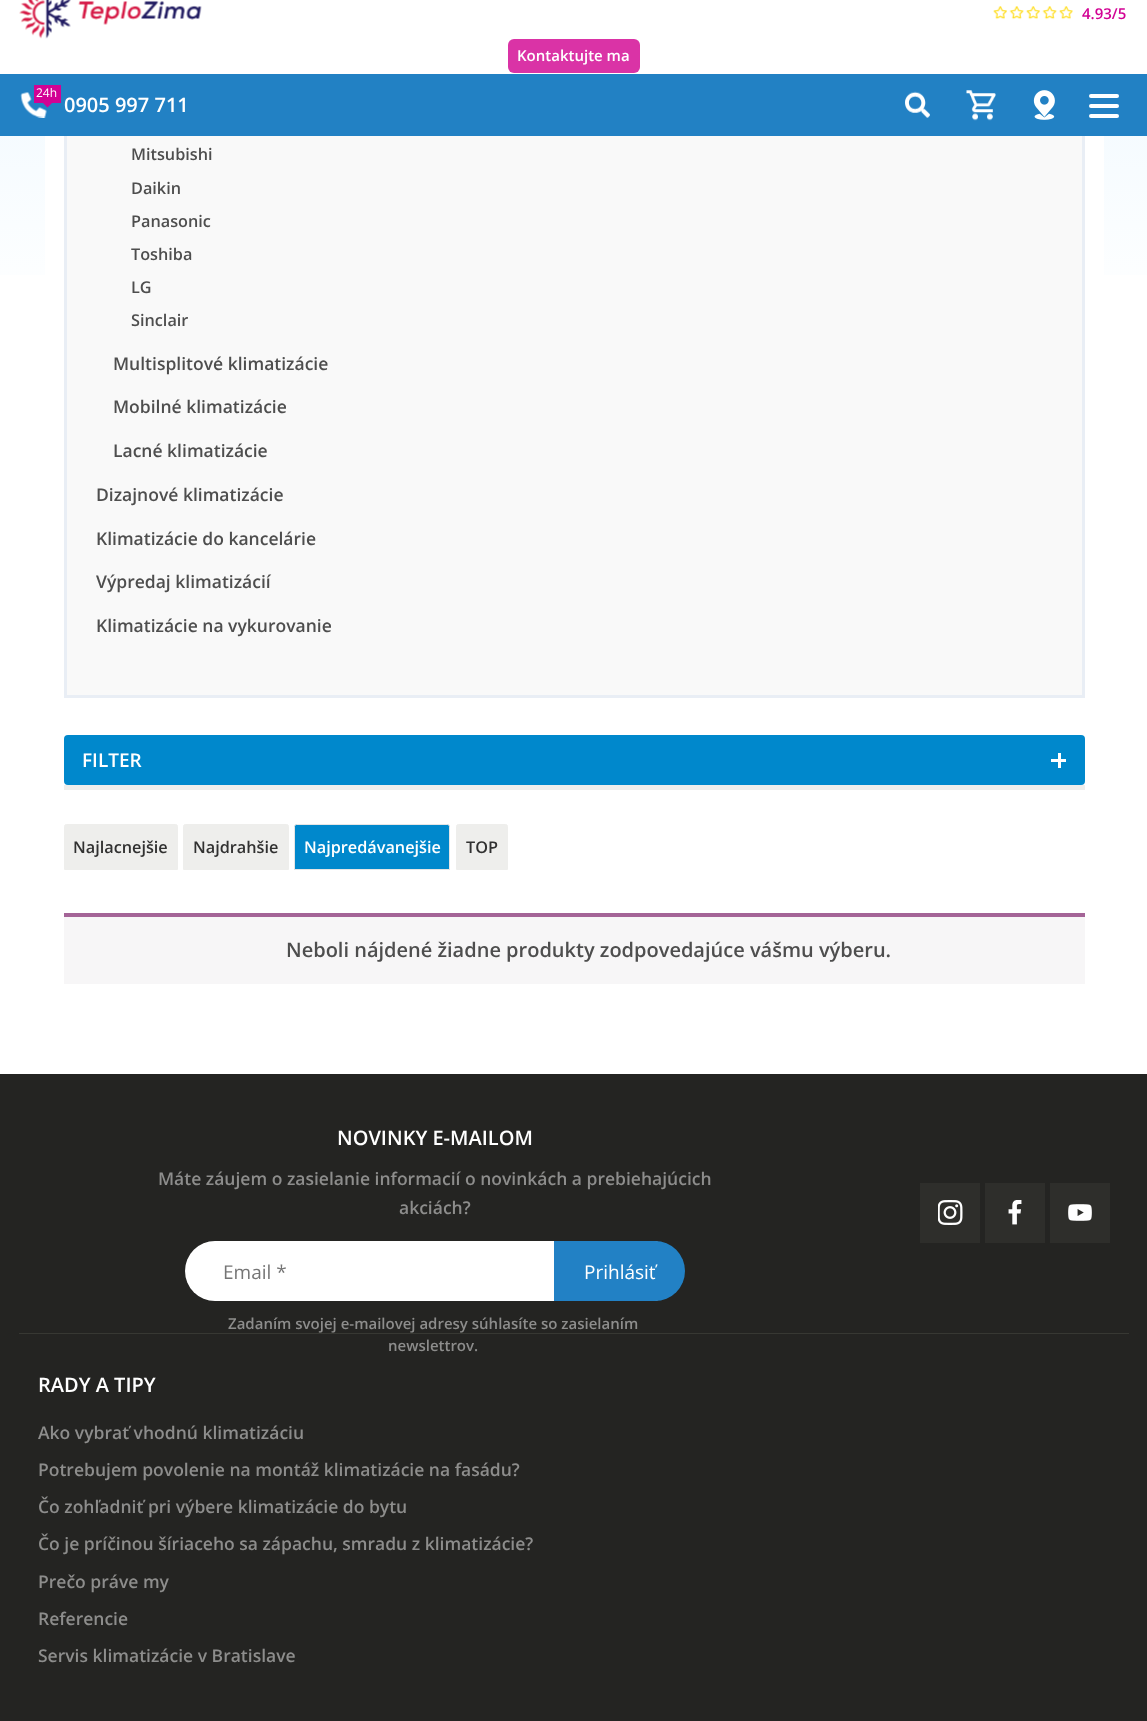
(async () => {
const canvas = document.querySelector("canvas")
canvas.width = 1147
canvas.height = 1721
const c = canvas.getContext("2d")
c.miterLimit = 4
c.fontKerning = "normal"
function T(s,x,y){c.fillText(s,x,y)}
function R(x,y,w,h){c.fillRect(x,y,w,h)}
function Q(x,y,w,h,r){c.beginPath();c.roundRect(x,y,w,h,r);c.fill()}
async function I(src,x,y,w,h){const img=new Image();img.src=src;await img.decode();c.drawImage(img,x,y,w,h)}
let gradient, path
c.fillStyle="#fff"
R(0,0,1147,1721)
gradient = c.createLinearGradient(574,1074,574,-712)
gradient.addColorStop(.42,"#fff")
gradient.addColorStop(.67,"#e8f6ff")
gradient.addColorStop(.78,"#ecf8ff")
gradient.addColorStop(.93,"#edfdff")
c.fillStyle = gradient
R(0,136,1147,139)
c.fillStyle="#fff"
R(45,136,1059,139)
c.fillStyle="#f9f9f9"
R(67,136,1015,559)
c.strokeStyle="#e9eef5"
c.lineWidth=3
c.strokeRect(65.5,-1.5,1018,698)
c.fillStyle="#fff"
R(64,0,1021,74)
await I("1.png",19,0,183,39)
await I("2.png",993,6,80,14)
c.font="600 15px Open Sans"
c.fillStyle="#d20294"
T("4.93/5",1082,19)
c.fillStyle="#da33a6"
Q(508,39,132,34,6)
c.fillStyle="#fff"
T("Kontaktujte ma",517,61)
c.fillStyle="#2281c4"
R(0,74,1147,62)
await I("3.png",20,92,27,26)
c.fillStyle="#d20294"
R(34,85,27,18)
c.font="12px Open Sans"
c.fillStyle="#fff"
T("24h",36,97)
c.fillStyle="#d20294"
path = new Path2D("M42.5 102.5h10l-5 5z")
c.fill(path)
c.font="600 20px Open Sans"
c.fillStyle="#fff"
T("0905 997 711",64,112)
await I("4.png",905,91,25,27)
await I("5.png",966,90,30,31)
await I("6.png",1033,90,22,30)
Q(1089,104,30,4,2)
Q(1089,94,30,4,2)
Q(1089,114,30,4,2)
c.font="600 16.25px Open Sans"
c.fillStyle="#4e4e4e"
T("Mitsubishi",131,160)
T("Daikin",131,194)
T("Panasonic",131,227)
T("Toshiba",131,260)
T("LG",131,293)
T("Sinclair",131,326)
c.font="600 17.5px Open Sans"
T("Multisplitové klimatizácie",113,370)
T("Mobilné klimatizácie",113,413)
T("Lacné klimatizácie",113,457)
T("Dizajnové klimatizácie",96,501)
T("Klimatizácie do kancelárie",96,545)
T("Výpredaj klimatizácií",96,588)
T("Klimatizácie na vykurovanie",96,632)
c.fillStyle="#08c"
Q(64,735,1021,50,4)
c.font="600 19px Open Sans"
c.fillStyle="#fff"
T("FILTER",82,767)
R(1051,759,15,3)
R(1058,753,3,15)
c.fillStyle="#eeeeec"
R(64,785,1021,5)
c.beginPath()
c.roundRect(64.5,824.5,113,45,[2,2,0,0])
c.fill()
c.strokeStyle="#eeeeec"
c.lineWidth=1
c.stroke()
c.font="600 16.25px Open Sans"
c.fillStyle="#313131"
T("Najlacnejšie",73,853)
c.fillStyle="#eeeeec"
c.beginPath()
c.roundRect(183.5,824.5,105,45,[2,2,0,0])
c.fill()
c.stroke()
c.fillStyle="#313131"
T("Najdrahšie",193,853)
c.fillStyle="#08c"
c.beginPath()
c.roundRect(294.5,824.5,155,45,[2,2,0,0])
c.fill()
c.strokeStyle="#e5e5e5"
c.stroke()
c.fillStyle="#fff"
T("Najpredávanejšie",304,853)
c.fillStyle="#eeeeec"
c.beginPath()
c.roundRect(456.5,824.5,51,45,[2,2,0,0])
c.fill()
c.strokeStyle="#eeeeec"
c.stroke()
c.fillStyle="#313131"
T("TOP",466,853)
c.fillStyle="#f7f6f7"
R(64,917,1021,67)
c.fillStyle="#a46497"
R(64,913,1021,4)
c.font="600 20px Open Sans"
c.fillStyle="#4e4e4e"
T("Neboli nájdené žiadne produkty zodpovedajúce vášmu výberu.",286,957)
c.fillStyle="#242422"
R(0,1074,1147,647)
c.fillStyle="#fff"
T("NOVINKY E-MAILOM",337,1145)
c.font="600 17.5px Open Sans"
c.fillStyle="#8d8d8c"
T("Máte záujem o zasielanie informacií o novinkách a prebiehajúcich",158,1185)
T("akciách?",399,1214)
c.fillStyle="#fff"
Q(185,1241,496,60,30)
c.font="19px Open Sans"
c.fillStyle="#757575"
T("Email *",223,1279)
c.fillStyle="#2281c5"
c.beginPath()
c.roundRect(554,1241,131,60,[0,30,30,0])
c.fill()
c.fillStyle="#fff"
T("Prihlásiť",584,1279)
c.font="600 15px Open Sans"
c.fillStyle="#8d8d8c"
T("Zadaním svojej e-mailovej adresy súhlasíte so zasielaním",228,1329)
T("newslettrov.",388,1351)
c.fillStyle="#2e2e2b"
R(920,1183,60,60)
await I("7.png",938,1200,25,25)
R(985,1183,60,60)
await I("8.png",1008,1200,14,25)
R(1050,1183,60,60)
await I("9.png",1068,1204,24,17)
c.fillStyle="#373833"
R(19,1333,1110,1)
c.font="600 20px Open Sans"
c.fillStyle="#fff"
T("RADY A TIPY",38,1392)
c.font="600 17.5px Open Sans"
c.fillStyle="#8d8d8c"
T("Ako vybrať vhodnú klimatizáciu",38,1439)
T("Potrebujem povolenie na montáž klimatizácie na fasádu?",38,1476)
T("Čo zohľadniť pri výbere klimatizácie do bytu",38,1513)
T("Čo je príčinou šíriaceho sa zápachu, smradu z klimatizácie?",38,1550)
T("Prečo práve my",38,1588)
T("Referencie",38,1625)
T("Servis klimatizácie v Bratislave",38,1662)
})()
